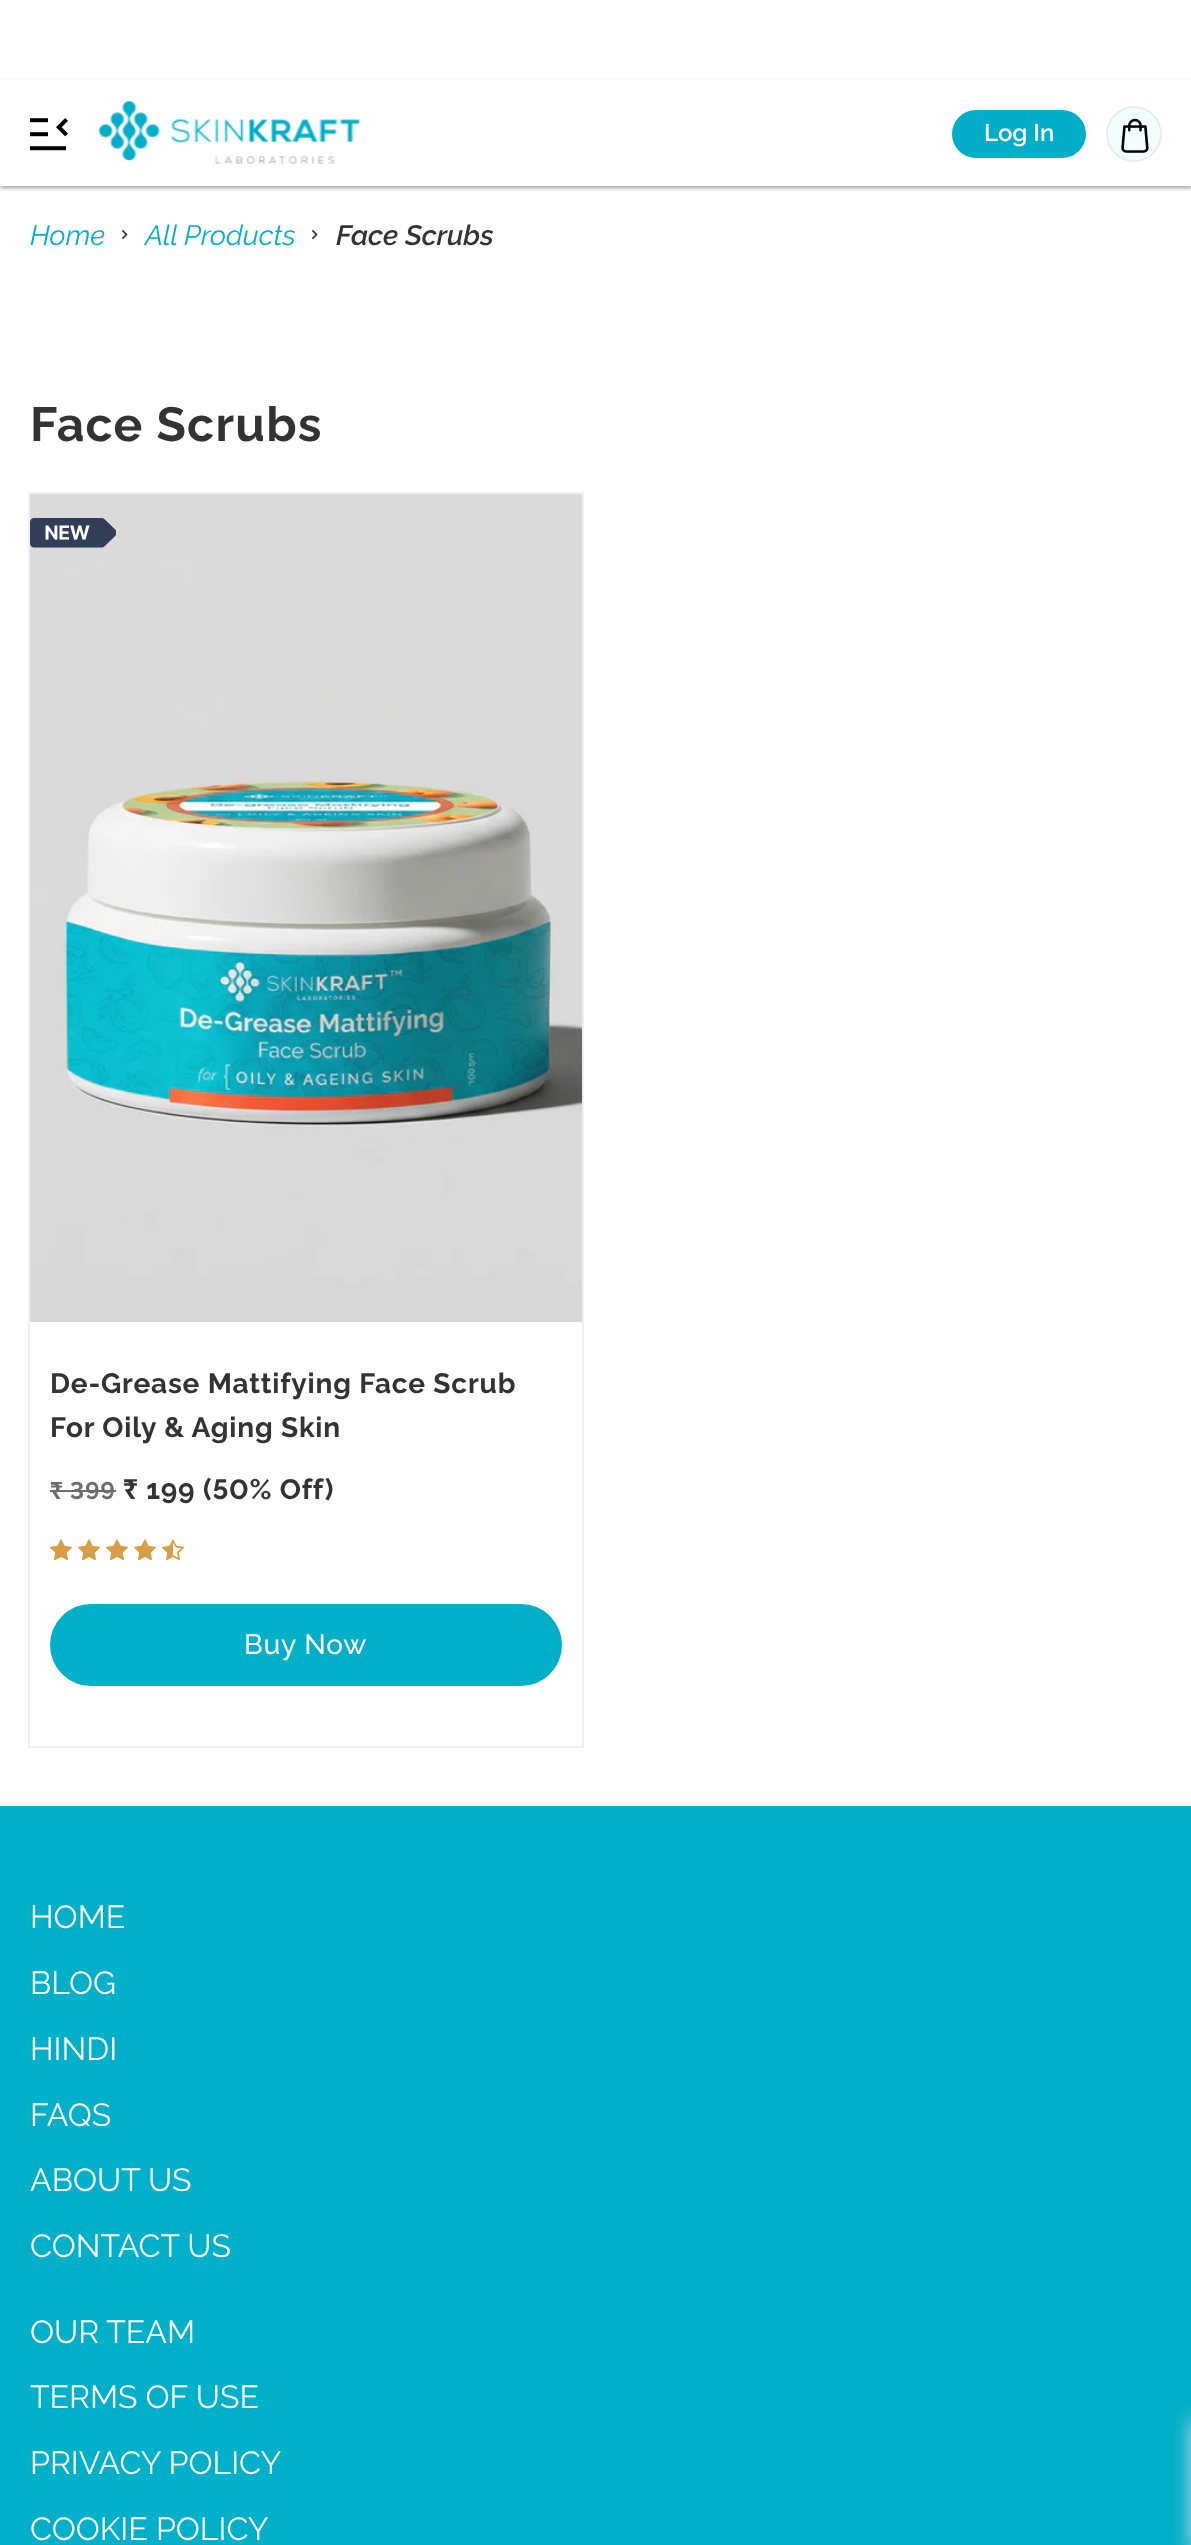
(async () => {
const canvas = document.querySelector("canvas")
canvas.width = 1191
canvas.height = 2545
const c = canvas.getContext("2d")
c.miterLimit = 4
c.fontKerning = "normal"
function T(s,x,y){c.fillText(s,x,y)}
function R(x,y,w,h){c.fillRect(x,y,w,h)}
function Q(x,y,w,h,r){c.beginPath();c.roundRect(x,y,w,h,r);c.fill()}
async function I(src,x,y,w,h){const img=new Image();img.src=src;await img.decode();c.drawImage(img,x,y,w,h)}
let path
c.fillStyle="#fff"
R(0,0,1191,2545)
c.save()
c.beginPath()
c.rect(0,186,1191,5)
c.clip()
c.fillStyle="#00000033"
c.filter="blur(2px)"
c.beginPath()
c.rect(0,2,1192,186)
c.fill()
c.filter="none"
c.restore()
c.save()
path = new Path2D("M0 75h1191v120h-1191zm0 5h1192v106h-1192z")
c.clip(path,"evenodd")
c.fillStyle="#00000033"
c.filter="blur(2px)"
c.beginPath()
c.rect(0,82,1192,106)
c.fill()
c.filter="none"
c.restore()
await I("1.png",30,118,38,33)
await I("2.png",99,101,261,63)
c.fillStyle="#02aec7"
Q(952,110,134,48,24)
c.font="600 24px Raleway"
c.fillStyle="#fff"
T("Log In",984,141)
c.fillStyle="#f2fdff"
c.beginPath()
c.arc(1134,134,27,0,7)
c.fill()
c.strokeStyle="#ebebeb"
c.lineWidth=2
c.stroke()
await I("3.png",1121,118,28,35)
c.font="italic 28px Raleway"
c.fillStyle="#00afc8"
T("Home",30,245)
await I("4.png",122,230,6,10)
T("All Products",145,245)
await I("4.png",312,230,6,10)
c.font="italic 600 28px Raleway"
c.fillStyle="#333"
T("Face Scrubs",336,245)
c.letterSpacing="1.25px"
c.font="bold 48px Raleway"
T("Face Scrubs",30,441)
c.fillStyle="#6c6c6c"
R(50,1490,66,2)
await I("7.png",50,1539,22,22)
await I("7.png",78,1539,22,22)
await I("7.png",106,1539,22,22)
await I("7.png",134,1539,22,22)
await I("8.png",162,1539,22,22)
c.fillStyle="#00afc8"
Q(50,1604,512,82,41)
c.strokeStyle="#f0f0f0"
c.strokeRect(29,493,554,1254)
await I("5.png",30,494,552,828)
await I("6.png",30,518,86,30)
c.letterSpacing="0.8px"
c.font="bold 28px Raleway"
c.fillStyle="#333"
T("De-Grease Mattifying Face Scrub",50,1393)
T("For Oily & Aging Skin",50,1437)
c.letterSpacing="0.75px"
c.font="bold 24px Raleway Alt"
c.fillStyle="#6c6c6c"
T("₹ 399",50,1499)
c.font="bold 28px Raleway"
c.fillStyle="#333"
T("₹ 199",123,1499)
c.font="bold 28px Raleway Alt"
T("(50% Off)",203,1499)
c.font="500 28px Raleway"
c.fillStyle="#fff"
T("Buy Now",244,1654)
c.fillStyle="#00afc8"
R(0,1806,1191,739)
c.fillStyle="#ddd"
c.filter="blur(10px)"
c.beginPath()
c.rect(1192,2420,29,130)
c.fill()
c.filter="none"
c.letterSpacing="0px"
c.font="32px Raleway"
c.fillStyle="#fff"
T("HOME",30,1928)
T("BLOG",30,1994)
T("HINDI",30,2060)
T("FAQS",30,2126)
T("ABOUT US",30,2191)
T("CONTACT US",30,2257)
T("OUR TEAM",30,2343)
T("TERMS OF USE",30,2408)
T("PRIVACY POLICY",30,2474)
T("COOKIE POLICY",30,2540)
})()
